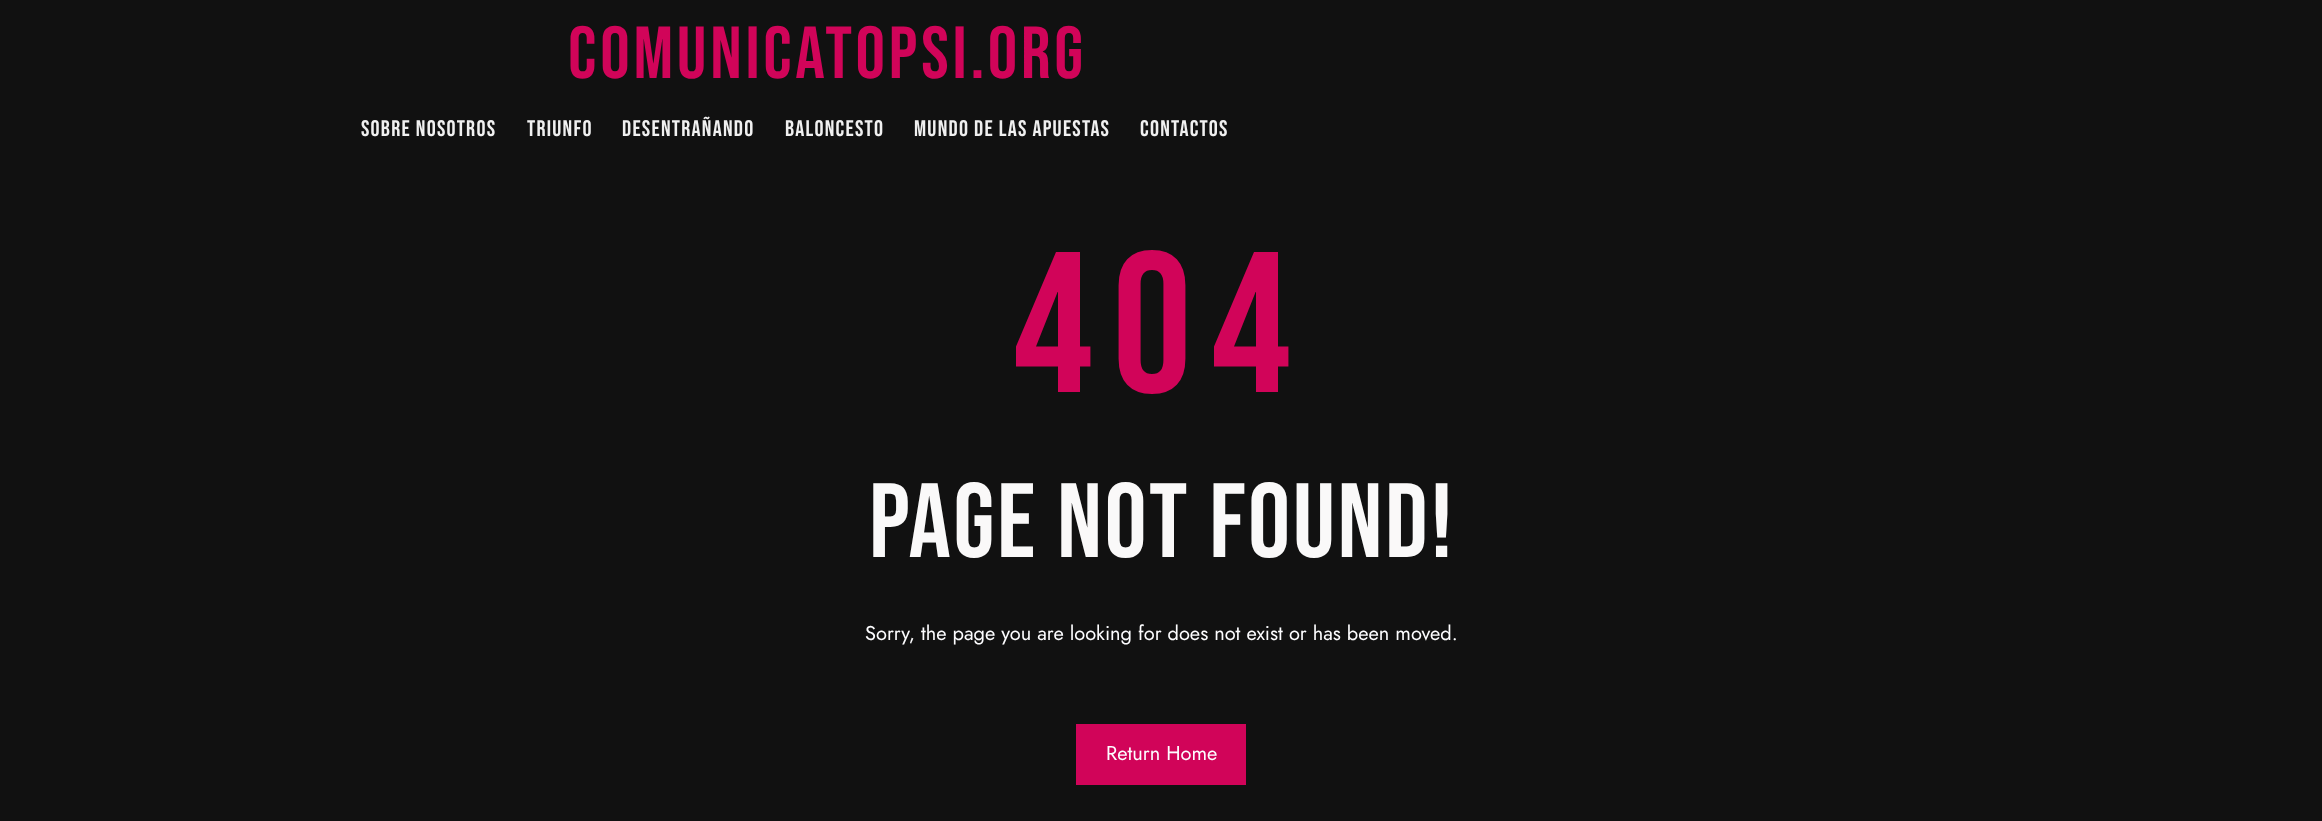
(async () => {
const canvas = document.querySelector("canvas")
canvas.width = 2322
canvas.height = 821
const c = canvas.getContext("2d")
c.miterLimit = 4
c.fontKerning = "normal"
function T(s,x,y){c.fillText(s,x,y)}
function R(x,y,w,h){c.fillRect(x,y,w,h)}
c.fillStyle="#111"
R(0,0,2322,821)
c.letterSpacing="3.75px"
c.font="73.75px Bebas Neue"
c.fillStyle="#d10459"
T("COMUNICATOPSI.ORG",568,78)
c.letterSpacing="1.25px"
c.font="22.5px Bebas Neue"
c.fillStyle="#f0f0f0"
T("SOBRE NOSOTROS",361,136)
T("Triunfo",527,136)
T("Desentrañando",622,136)
T("Baloncesto",785,136)
T("Mundo de las Apuestas",914,136)
T("Contactos",1140,136)
c.letterSpacing="19px"
c.font="200px Bebas Neue"
c.fillStyle="#d10459"
T("404",1013,392)
c.letterSpacing="2.5px"
c.font="105.5px Bebas Neue"
c.fillStyle="#faf9f9"
T("Page not found!",869,557)
c.letterSpacing="0px"
c.font="20px Jost"
c.fillStyle="#fdfdff"
T("Sorry, the page you are looking for does not exist or has been moved.",865,640)
c.fillStyle="#d10459"
R(1076,724,170,61)
c.fillStyle="#fdfdff"
T("Return Home",1106,760)
})()
